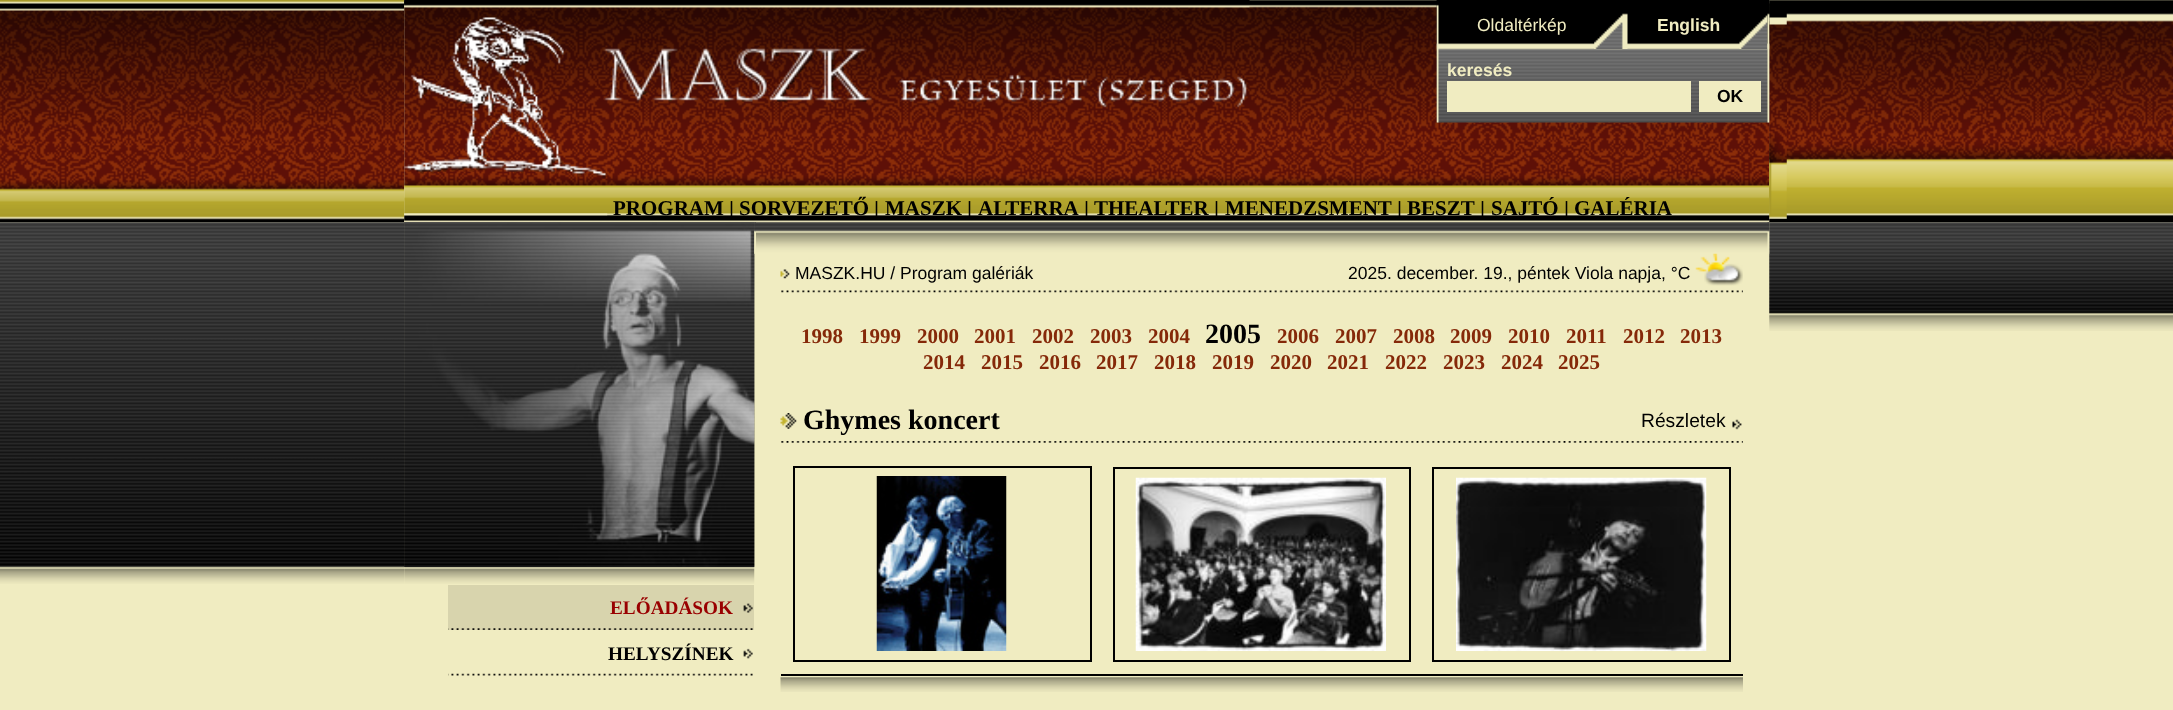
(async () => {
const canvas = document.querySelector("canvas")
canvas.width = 2173
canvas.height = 710
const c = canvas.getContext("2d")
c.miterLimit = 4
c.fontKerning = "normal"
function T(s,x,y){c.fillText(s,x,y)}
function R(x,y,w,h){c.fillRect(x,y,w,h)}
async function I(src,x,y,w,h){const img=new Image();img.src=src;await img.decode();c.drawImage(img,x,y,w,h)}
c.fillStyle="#f0ecc1"
R(0,0,2173,710)
await I("1.png",0,0,405,223)
await I("2.png",404,0,1366,223)
await I("3.png",404,0,846,123)
await I("10.png",1769,0,404,223)
await I("11.png",1769,3,18,216)
await I("4.png",1436,0,334,123)
await I("5.png",1436,0,3,123)
c.font="17.5px Liberation Sans"
T("Oldaltérkép",1477,31)
await I("6.png",1594,13,34,36)
c.font="bold 17.5px Liberation Sans"
T("English",1657,31)
await I("7.png",1739,15,29,34)
await I("8.png",1767,0,3,123)
T("keresés",1447,76)
R(1447,81,244,31)
R(1699,81,62,31)
c.fillStyle="#000"
T("OK",1717,102)
await I("9.png",404,122,204,94)
c.font="bold 21px Liberation Serif"
T("PROGRAM",613,215)
c.font="19.25px Liberation Sans"
T("|",729,215)
c.font="bold 21px Liberation Serif"
T("SORVEZETŐ",739,215)
c.font="19.25px Liberation Sans"
T("|",874,215)
c.font="bold 21px Liberation Serif"
T("MASZK",885,215)
c.font="19.25px Liberation Sans"
T("|",967,215)
c.font="bold 21px Liberation Serif"
T("ALTERRA",978,215)
c.font="19.25px Liberation Sans"
T("|",1084,215)
c.font="bold 21px Liberation Serif"
T("THEALTER",1094,215)
c.font="19.25px Liberation Sans"
T("|",1214,215)
c.font="bold 21px Liberation Serif"
T("MENEDZSMENT",1225,215)
c.font="19.25px Liberation Sans"
T("|",1397,215)
c.font="bold 21px Liberation Serif"
T("BESZT",1407,215)
c.font="19.25px Liberation Sans"
T("|",1480,215)
c.font="bold 21px Liberation Serif"
T("SAJTÓ",1491,215)
c.font="19.25px Liberation Sans"
T("|",1564,215)
c.font="bold 21px Liberation Serif"
T("GALÉRIA",1574,215)
await I("12.png",0,222,405,362)
await I("27.png",404,222,351,362)
await I("13.png",754,222,1016,32)
await I("28.png",404,222,351,345)
await I("14.png",754,222,2,32)
await I("26.png",1769,222,404,109)
await I("15.png",1767,222,3,32)
await I("16.png",781,290,962,3)
await I("17.png",780,269,10,10)
c.font="17.5px Liberation Sans"
T("MASZK.HU / Program galériák",795,279)
T("2025. december. 19., péntek Viola napja, °C",1348,279)
await I("18.png",1695,253,48,33)
c.font="bold 21px Liberation Serif"
c.fillStyle="#852909"
T("1998",801,343)
T("1999",859,343)
T("2000",917,343)
T("2001",974,343)
T("2002",1032,343)
T("2003",1090,343)
T("2004",1148,343)
c.font="bold 28px Liberation Serif"
c.fillStyle="#000"
T("2005",1205,343)
c.font="bold 21px Liberation Serif"
c.fillStyle="#852909"
T("2006",1277,343)
T("2007",1335,343)
T("2008",1393,343)
T("2009",1450,343)
T("2010",1508,343)
T("2011",1566,343)
T("2012",1623,343)
T("2013",1680,343)
T("2014",923,369)
T("2015",981,369)
T("2016",1039,369)
T("2017",1096,369)
T("2018",1154,369)
T("2019",1212,369)
T("2020",1270,369)
T("2021",1327,369)
T("2022",1385,369)
T("2023",1443,369)
T("2024",1501,369)
T("2025",1558,369)
await I("19.png",781,441,962,2)
await I("20.png",780,413,17,16)
c.font="bold 28px Liberation Serif"
c.fillStyle="#000"
T("Ghymes koncert",803,429)
await I("21.png",1732,419,10,11)
c.font="19.25px Liberation Sans"
T("Részletek",1641,427)
R(781,674,962,2)
c.strokeStyle="#000"
c.lineWidth=2
c.strokeRect(794,467,297,194)
await I("22.png",876,476,131,175)
c.strokeRect(1114,468,296,193)
await I("23.png",1135,477,251,174)
c.strokeRect(1433,468,297,193)
await I("24.png",1456,477,251,174)
await I("25.png",780,677,963,15)
c.fillStyle="#d8d4ad"
R(448,585,306,45)
await I("29.png",448,628,305,2)
c.font="bold 19.25px Liberation Serif"
c.fillStyle="#900"
T("ELŐADÁSOK",610,614)
await I("30.png",743,603,10,10)
await I("31.png",448,673,305,3)
c.fillStyle="#000"
T("HELYSZÍNEK",608,660)
await I("32.png",743,648,10,11)
})()
